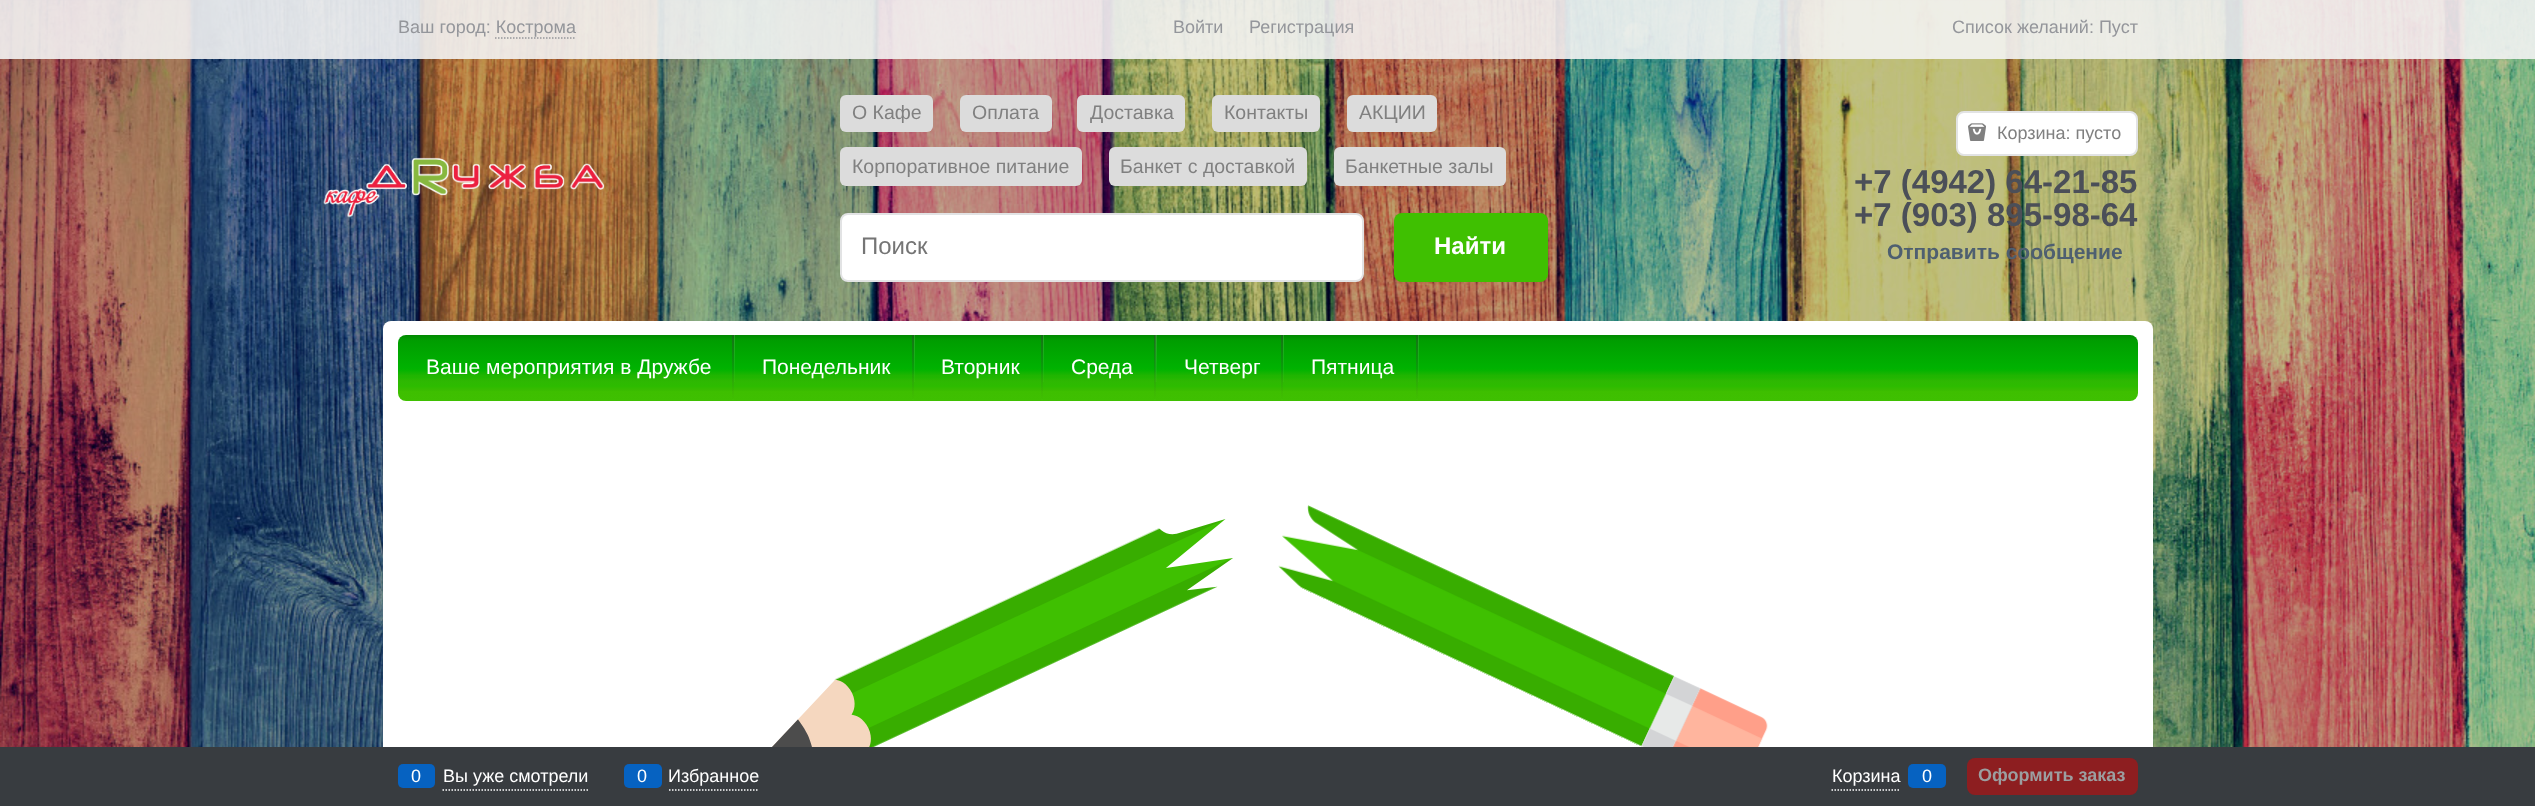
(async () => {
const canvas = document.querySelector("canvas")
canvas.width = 2535
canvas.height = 806
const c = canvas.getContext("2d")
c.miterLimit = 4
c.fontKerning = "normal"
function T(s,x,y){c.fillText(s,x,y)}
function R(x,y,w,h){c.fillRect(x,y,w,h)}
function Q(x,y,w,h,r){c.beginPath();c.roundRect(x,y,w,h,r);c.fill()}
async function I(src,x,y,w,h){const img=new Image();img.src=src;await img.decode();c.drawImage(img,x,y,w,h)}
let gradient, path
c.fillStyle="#fff"
R(0,0,2535,806)
await I("1.png",0,0,2535,747)
c.fillStyle="#00000040"
R(0,0,2535,321)
c.fillStyle="#f3f3f3e6"
R(0,0,2535,59)
c.font="18px Liberation Sans"
c.fillStyle="#94969b"
T("Ваш город: Кострома",398,33)
path = new Path2D("M495 38h81")
c.strokeStyle="#94969b"
c.lineWidth=1.5
c.setLineDash([1.5,1.5])
c.stroke(path)
T("Войти",1173,33)
T("Регистрация",1249,33)
T("Список желаний: Пуст",1952,33)
await I("2.png",323,157,282,61)
c.fillStyle="#dcdcdc"
Q(840,95,93,37,6)
c.font="19.5px Liberation Sans"
c.fillStyle="#808080"
T("О Кафе",852,119)
c.fillStyle="#dcdcdc"
Q(960,95,92,37,6)
c.fillStyle="#808080"
T("Оплата",972,119)
c.fillStyle="#dcdcdc"
Q(1077,95,108,37,6)
c.fillStyle="#808080"
T("Доставка",1090,119)
c.fillStyle="#dcdcdc"
Q(1212,95,108,37,6)
c.fillStyle="#808080"
T("Контакты",1224,119)
c.fillStyle="#dcdcdc"
Q(1347,95,90,37,6)
c.fillStyle="#808080"
T("АКЦИИ",1359,119)
c.fillStyle="#dcdcdc"
Q(840,147,242,39,6)
c.fillStyle="#808080"
T("Корпоративное питание",852,173)
c.fillStyle="#dcdcdc"
Q(1109,147,198,39,6)
c.fillStyle="#808080"
T("Банкет с доставкой",1120,173)
c.fillStyle="#dcdcdc"
Q(1334,147,172,39,6)
c.fillStyle="#808080"
T("Банкетные залы",1345,173)
c.fillStyle="#fff"
c.beginPath()
c.roundRect(841,214,522,67,7)
c.fill()
c.strokeStyle="#e2e3e4"
c.lineWidth=2
c.setLineDash([])
c.stroke()
c.font="24px Liberation Sans"
c.fillStyle="#757575"
T("Поиск",861,254)
c.fillStyle="#3fc001"
Q(1394,213,154,69,8)
c.font="bold 24px Liberation Sans"
c.fillStyle="#fff"
T("Найти",1434,254)
c.beginPath()
c.roundRect(1957,112,180,43,7)
c.fill()
c.stroke()
await I("3.png",1968,123,18,18)
c.font="18px Liberation Sans"
c.fillStyle="#808080"
T("Корзина: пусто",1997,139)
c.font="bold 33px Liberation Sans"
c.fillStyle="#4b4f58"
T("+7 (4942) 64-21-85",1854,193)
T("+7 (903) 895-98-64",1854,226)
c.font="bold 21px Liberation Sans"
c.fillStyle="#4e5f70"
T("Отправить сообщение",1887,259)
c.fillStyle="#00000040"
R(0,321,2535,426)
c.fillStyle="#fff"
Q(383,321,1770,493,8)
gradient = c.createLinearGradient(1268,334,1268,401)
gradient.addColorStop(0,"#008400")
gradient.addColorStop(.08,"#019a01")
gradient.addColorStop(.11,"#009e00")
gradient.addColorStop(.51,"#00b201")
gradient.addColorStop(.54,"#04b300")
gradient.addColorStop(.62,"#20b501")
gradient.addColorStop(.65,"#21b700")
gradient.addColorStop(.7,"#2eb802")
gradient.addColorStop(.78,"#2dbc00")
gradient.addColorStop(.84,"#3abc00")
gradient.addColorStop(.86,"#3ebf00")
gradient.addColorStop(1,"#3fc001")
c.fillStyle = gradient
Q(398,335,1740,66,8)
c.font="21px Liberation Sans"
c.fillStyle="#fff"
T("Ваше мероприятия в Дружбе",426,374)
gradient = c.createLinearGradient(734,335,734,401)
gradient.addColorStop(0,"#ffffff24")
gradient.addColorStop(.72,"#ffffff05")
gradient.addColorStop(1,"#ffffff00")
c.fillStyle = gradient
R(734,335,1,47)
gradient = c.createLinearGradient(733,335,733,401)
gradient.addColorStop(0,"#39393963")
gradient.addColorStop(.17,"#39393954")
gradient.addColorStop(.61,"#3939391f")
gradient.addColorStop(.96,"#39393903")
gradient.addColorStop(.98,"#ffffff03")
gradient.addColorStop(1,"#ffffff00")
c.fillStyle = gradient
R(732,335,2,66)
c.fillStyle="#fff"
T("Понедельник",762,374)
gradient = c.createLinearGradient(914,335,914,401)
gradient.addColorStop(0,"#ffffff24")
gradient.addColorStop(.72,"#ffffff05")
gradient.addColorStop(1,"#ffffff00")
c.fillStyle = gradient
R(914,335,1,47)
gradient = c.createLinearGradient(913,335,913,401)
gradient.addColorStop(0,"#39393963")
gradient.addColorStop(.17,"#39393954")
gradient.addColorStop(.61,"#3939391f")
gradient.addColorStop(.96,"#39393903")
gradient.addColorStop(.98,"#ffffff03")
gradient.addColorStop(1,"#ffffff00")
c.fillStyle = gradient
R(912,335,2,66)
c.fillStyle="#fff"
T("Вторник",941,374)
gradient = c.createLinearGradient(1043,335,1043,401)
gradient.addColorStop(0,"#ffffff24")
gradient.addColorStop(.72,"#ffffff05")
gradient.addColorStop(1,"#ffffff00")
c.fillStyle = gradient
R(1043,335,1,47)
gradient = c.createLinearGradient(1042,335,1042,401)
gradient.addColorStop(0,"#39393963")
gradient.addColorStop(.17,"#39393954")
gradient.addColorStop(.61,"#3939391f")
gradient.addColorStop(.96,"#39393903")
gradient.addColorStop(.98,"#ffffff03")
gradient.addColorStop(1,"#ffffff00")
c.fillStyle = gradient
R(1041,335,2,66)
c.fillStyle="#fff"
T("Среда",1071,374)
gradient = c.createLinearGradient(1156,335,1156,401)
gradient.addColorStop(0,"#ffffff24")
gradient.addColorStop(.72,"#ffffff05")
gradient.addColorStop(1,"#ffffff00")
c.fillStyle = gradient
R(1155,335,2,47)
gradient = c.createLinearGradient(1154,335,1154,401)
gradient.addColorStop(0,"#39393963")
gradient.addColorStop(.17,"#39393954")
gradient.addColorStop(.61,"#3939391f")
gradient.addColorStop(.96,"#39393903")
gradient.addColorStop(.98,"#ffffff03")
gradient.addColorStop(1,"#ffffff00")
c.fillStyle = gradient
R(1154,335,2,66)
c.fillStyle="#fff"
T("Четверг",1184,374)
gradient = c.createLinearGradient(1283,335,1283,401)
gradient.addColorStop(0,"#ffffff24")
gradient.addColorStop(.72,"#ffffff05")
gradient.addColorStop(1,"#ffffff00")
c.fillStyle = gradient
R(1283,335,1,47)
gradient = c.createLinearGradient(1282,335,1282,401)
gradient.addColorStop(0,"#39393963")
gradient.addColorStop(.17,"#39393954")
gradient.addColorStop(.61,"#3939391f")
gradient.addColorStop(.96,"#39393903")
gradient.addColorStop(.98,"#ffffff03")
gradient.addColorStop(1,"#ffffff00")
c.fillStyle = gradient
R(1281,335,2,66)
c.fillStyle="#fff"
T("Пятница",1311,374)
gradient = c.createLinearGradient(1418,335,1418,401)
gradient.addColorStop(0,"#ffffff24")
gradient.addColorStop(.72,"#ffffff05")
gradient.addColorStop(1,"#ffffff00")
c.fillStyle = gradient
R(1418,335,1,47)
gradient = c.createLinearGradient(1417,335,1417,401)
gradient.addColorStop(0,"#39393963")
gradient.addColorStop(.17,"#39393954")
gradient.addColorStop(.61,"#3939391f")
gradient.addColorStop(.96,"#39393903")
gradient.addColorStop(.98,"#ffffff03")
gradient.addColorStop(1,"#ffffff00")
c.fillStyle = gradient
R(1416,335,2,66)
await I("4.png",772,505,996,242)
c.fillStyle="#383c40"
R(0,747,2535,59)
path = new Path2D("M442.5 790h145.5")
c.strokeStyle="#fff"
c.lineWidth=1.5
c.setLineDash([1.5,1.5])
c.stroke(path)
c.fillStyle="#0662c1"
Q(398,764,37,24,5)
c.font="18px Liberation Sans"
c.fillStyle="#fff"
T("0",411,782)
T("Вы уже смотрели",443,782)
path = new Path2D("M669 790h90")
c.stroke(path)
c.fillStyle="#0662c1"
Q(624,764,38,24,5)
c.fillStyle="#fff"
T("0",637,782)
T("Избранное",668,782)
path = new Path2D("M1831.5 790h69")
c.stroke(path)
T("Корзина",1832,782)
c.fillStyle="#0662c1"
Q(1908,764,38,24,5)
c.fillStyle="#fff"
T("0",1922,782)
c.fillStyle="#8d1e20"
Q(1967,758,171,37,8)
c.font="bold 18px Liberation Sans"
c.fillStyle="#9c9ea0"
T("Оформить заказ",1978,781)
})()
